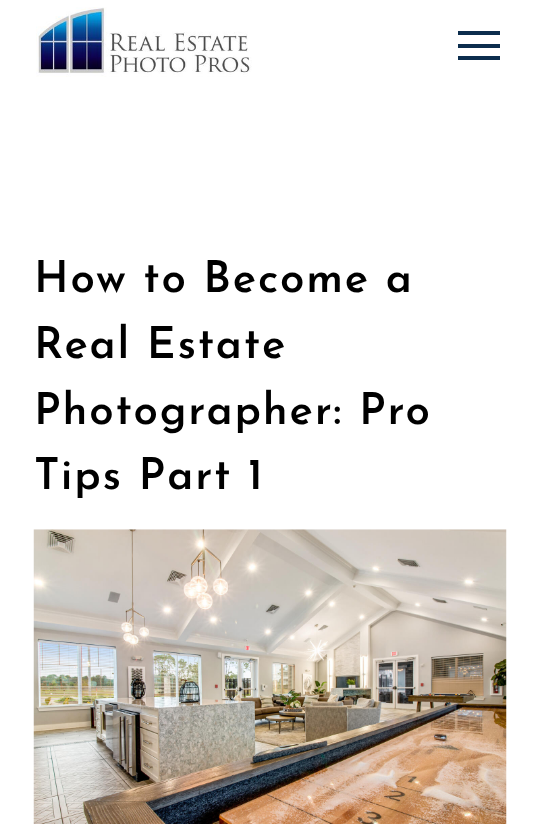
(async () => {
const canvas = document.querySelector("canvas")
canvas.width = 540
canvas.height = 824
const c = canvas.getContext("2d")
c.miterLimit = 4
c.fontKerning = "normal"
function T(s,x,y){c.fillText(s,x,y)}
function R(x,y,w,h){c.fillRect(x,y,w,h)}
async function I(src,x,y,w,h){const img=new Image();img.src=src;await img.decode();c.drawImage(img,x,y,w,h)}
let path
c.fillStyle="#fff"
R(0,0,540,824)
await I("1.png",36,7,216,70)
c.fillStyle="#0c2d4d"
path = new Path2D("M458 44h42v4h-42zm0-13h42v4h-42zm0 25h42v4h-42z")
c.fill(path)
c.letterSpacing="1.75px"
c.font="600 43.9px Josefin Sans"
c.fillStyle="#000"
T("How to Become a",34,292)
T("Real Estate",34,358)
T("Photographer: Pro",34,424)
T("Tips Part 1",34,489)
await I("2.png",33,529,474,295)
})()
